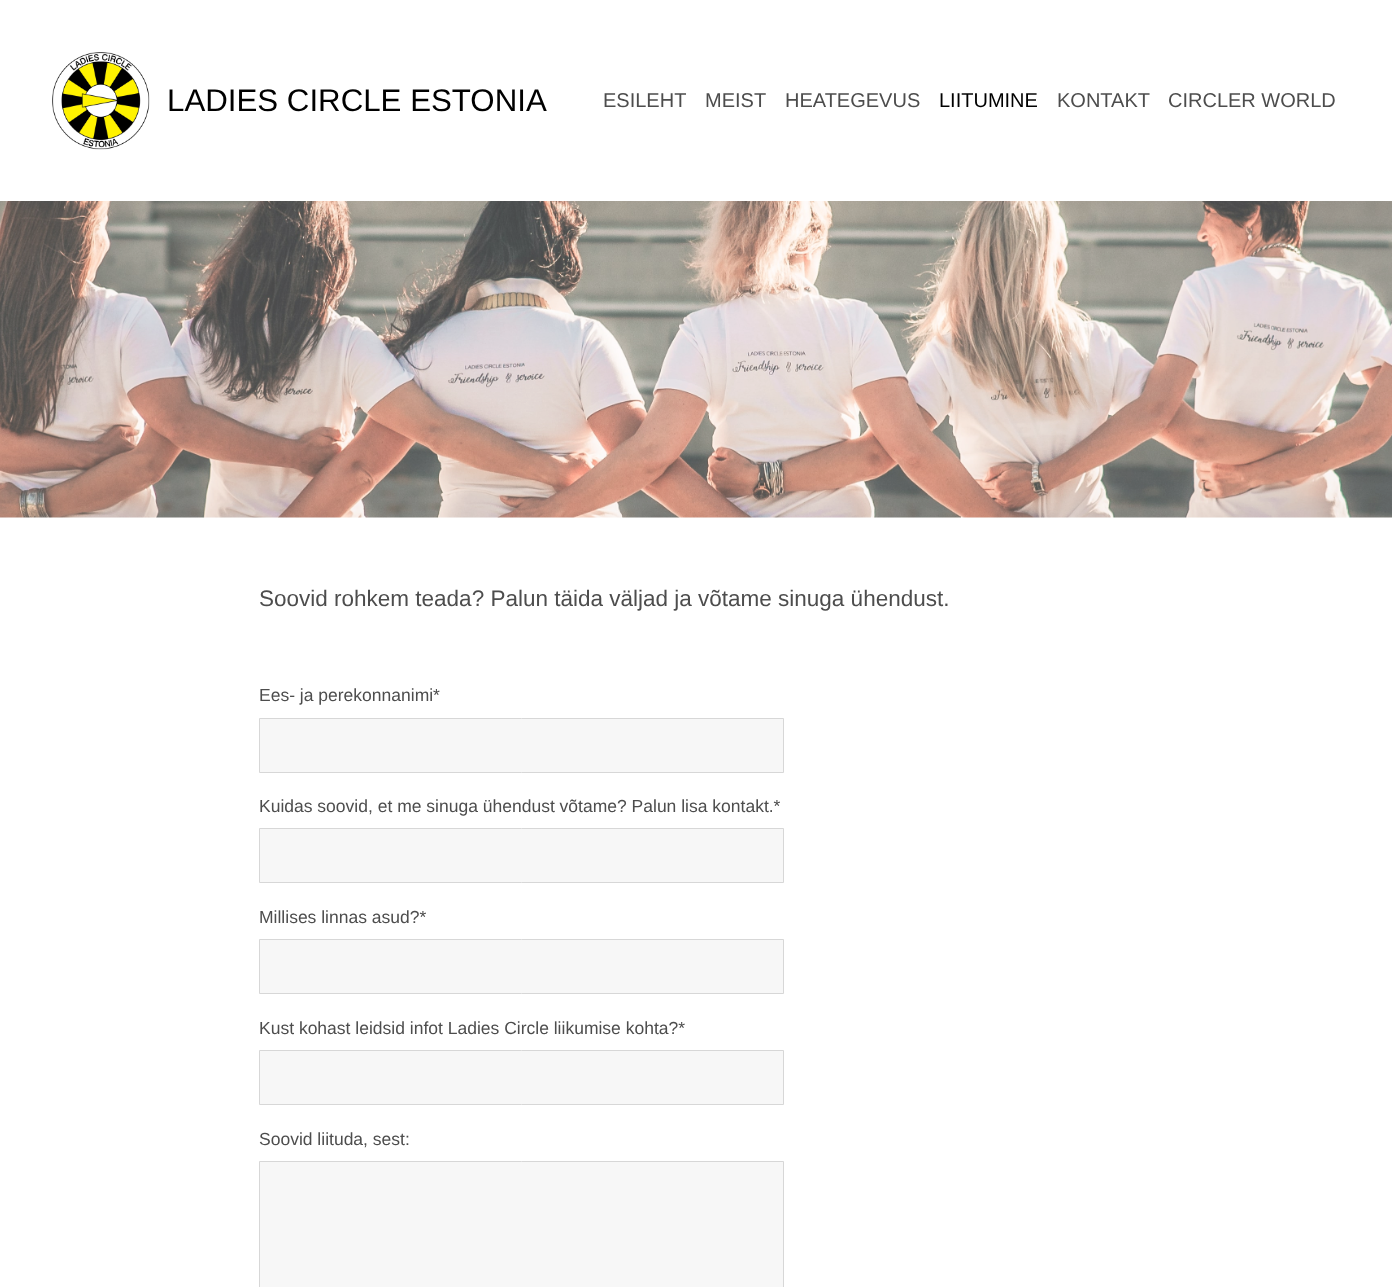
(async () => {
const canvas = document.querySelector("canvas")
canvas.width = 1392
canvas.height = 1287
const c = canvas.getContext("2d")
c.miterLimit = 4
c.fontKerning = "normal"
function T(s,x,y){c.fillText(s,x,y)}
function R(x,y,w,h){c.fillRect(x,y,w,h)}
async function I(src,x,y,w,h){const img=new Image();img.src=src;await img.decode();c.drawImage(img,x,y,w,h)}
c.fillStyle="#fff"
R(0,0,1392,1287)
await I("1.png",52,52,98,98)
c.font="31.25px Liberation Sans"
c.fillStyle="#000"
T("LADIES CIRCLE ESTONIA",167,111)
c.font="20px Liberation Sans"
c.fillStyle="#4d4d4d"
T("ESILEHT",603,107)
T("MEIST",705,107)
T("HEATEGEVUS",785,107)
c.fillStyle="#000"
T("LIITUMINE",939,107)
c.fillStyle="#4d4d4d"
T("KONTAKT",1057,107)
T("CIRCLER WORLD",1168,107)
await I("2.png",0,201,1392,317)
c.font="22.5px Liberation Sans"
T("Soovid rohkem teada? Palun täida väljad ja võtame sinuga ühendust.",259,606)
c.font="17.5px Liberation Sans"
T("Ees- ja perekonnanimi*",259,701)
c.fillStyle="#f7f7f7"
c.beginPath()
c.rect(259.5,718.5,524,54)
c.fill()
c.strokeStyle="#d7d7d7"
c.stroke()
c.fillStyle="#4d4d4d"
T("Kuidas soovid, et me sinuga ühendust võtame? Palun lisa kontakt.*",259,812)
c.fillStyle="#f7f7f7"
c.beginPath()
c.rect(259.5,828.5,524,54)
c.fill()
c.stroke()
c.fillStyle="#4d4d4d"
T("Millises linnas asud?*",259,923)
c.fillStyle="#f7f7f7"
c.beginPath()
c.rect(259.5,939.5,524,54)
c.fill()
c.stroke()
c.fillStyle="#4d4d4d"
T("Kust kohast leidsid infot Ladies Circle liikumise kohta?*",259,1034)
c.fillStyle="#f7f7f7"
c.beginPath()
c.rect(259.5,1050.5,524,54)
c.fill()
c.stroke()
c.fillStyle="#4d4d4d"
T("Soovid liituda, sest:",259,1145)
c.fillStyle="#f7f7f7"
c.beginPath()
c.rect(259.5,1161.5,524,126)
c.fill()
c.stroke()
})()
